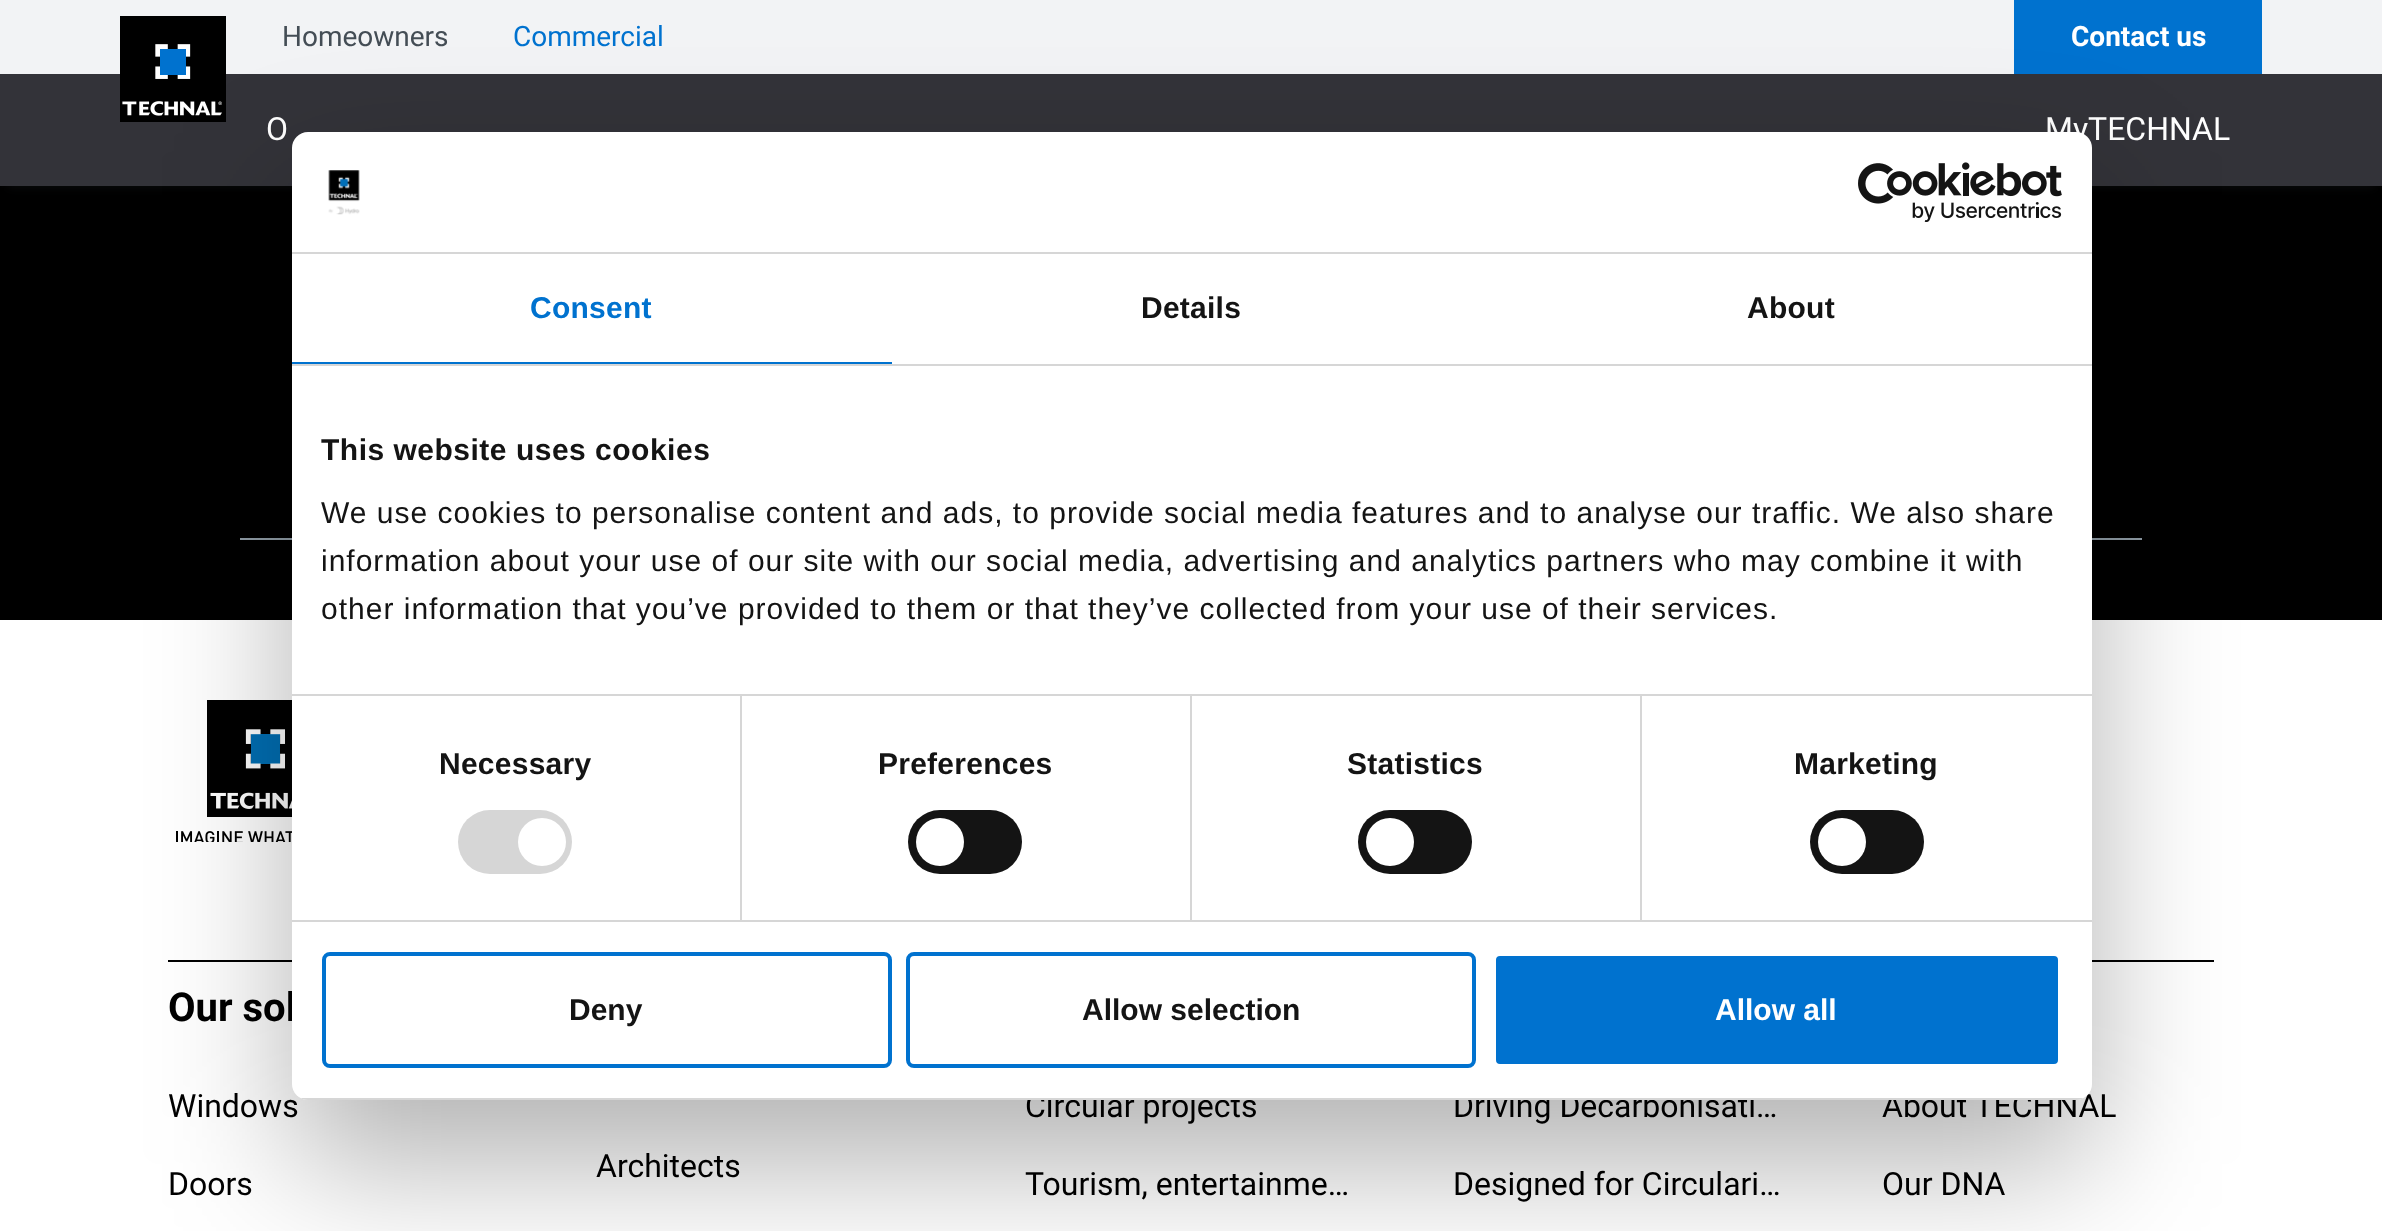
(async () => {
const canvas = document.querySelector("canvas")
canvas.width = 2382
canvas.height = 1231
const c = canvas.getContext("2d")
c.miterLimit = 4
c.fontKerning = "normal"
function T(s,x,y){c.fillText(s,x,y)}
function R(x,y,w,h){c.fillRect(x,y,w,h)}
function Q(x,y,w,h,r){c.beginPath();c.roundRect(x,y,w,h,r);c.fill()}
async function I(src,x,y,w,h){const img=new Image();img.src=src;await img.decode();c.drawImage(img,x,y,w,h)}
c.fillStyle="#fff"
R(0,0,2382,1231)
c.fillStyle="#000"
R(0,186,2382,434)
c.fillStyle="#444d551f"
c.filter="blur(4px)"
c.beginPath()
c.rect(8,18,2366,170)
c.fill()
c.filter="none"
c.fillStyle="#333339"
R(0,74,2382,112)
c.fillStyle="#f2f3f5"
R(0,0,2382,74)
await I("1.png",120,16,106,106)
c.font="28px Roboto"
c.fillStyle="#444d55"
T("Homeowners",282,46)
c.fillStyle="#0072cf"
T("Commercial",513,46)
R(2014,0,248,74)
c.font="bold 28px Roboto"
c.fillStyle="#fff"
T("Contact us",2071,46)
c.font="32px Roboto"
T("O",266,140)
T("MyTECHNAL",2045,140)
c.fillStyle="#919ea8"
R(240,538,1902,2)
await I("2.png",176,700,116,142)
c.fillStyle="#000"
R(168,960,124,2)
c.font="bold 40px Roboto"
T("Our sol",168,1021)
c.font="32px Roboto"
T("Windows",168,1117)
T("Doors",168,1195)
T("Architects",596,1177)
T("Circular projects",1025,1117)
T("Tourism, entertainme…",1025,1195)
T("Driving Decarbonisati…",1453,1117)
T("Designed for Circulari…",1453,1195)
R(2092,960,122,2)
T("About TECHNAL",1882,1117)
T("Our DNA",1882,1195)
c.fillStyle="#0000004d"
c.filter="blur(68px)"
c.beginPath()
c.roundRect(292,196,1800,968,16)
c.fill()
c.filter="none"
c.fillStyle="#fff"
Q(292,132,1800,968,16)
c.fillStyle="#d6d6d6"
R(292,252,1800,2)
await I("3.png",328,170,32,45)
await I("4.png",1858,162,204,60)
R(292,364,1800,2)
c.fillStyle="#0072cf"
R(292,362,600,2)
c.letterSpacing="0.25px"
c.font="bold 30px Liberation Sans"
T("Consent",530,318)
c.fillStyle="#141414"
T("Details",1141,318)
T("About",1747,318)
c.fillStyle="#d6d6d6"
R(292,694,1800,2)
c.letterSpacing="0.5px"
c.fillStyle="#141414"
T("This website uses cookies",321,460)
c.letterSpacing="1px"
c.font="30px Liberation Sans"
T("We use cookies to personalise content and ads, to provide social media features and to analyse our traffic. We also share",321,523)
T("information about your use of our site with our social media, advertising and analytics partners who may combine it with",321,571)
T("other information that you’ve provided to them or that they’ve collected from your use of their services.",321,619)
c.fillStyle="#d6d6d6"
R(292,920,1800,2)
R(740,696,2,224)
c.letterSpacing="0.25px"
c.font="bold 30px Liberation Sans"
c.fillStyle="#141414"
T("Necessary",439,774)
c.fillStyle="#d6d6d6"
Q(458,810,114,64,32)
c.fillStyle="#fff"
c.beginPath()
c.arc(542,842,24,0,7)
c.fill()
c.fillStyle="#d6d6d6"
R(1190,696,2,224)
c.fillStyle="#141414"
T("Preferences",878,774)
Q(908,810,114,64,32)
c.fillStyle="#fff"
c.beginPath()
c.arc(940,842,24,0,7)
c.fill()
c.fillStyle="#d6d6d6"
R(1640,696,2,224)
c.fillStyle="#141414"
T("Statistics",1347,774)
Q(1358,810,114,64,32)
c.fillStyle="#fff"
c.beginPath()
c.arc(1390,842,24,0,7)
c.fill()
c.fillStyle="#141414"
T("Marketing",1794,774)
Q(1810,810,114,64,32)
c.fillStyle="#fff"
c.beginPath()
c.arc(1842,842,24,0,7)
c.fill()
c.save()
c.beginPath()
c.roundRect(292,132,1800,968,16)
c.clip()
c.fillStyle="#d6d6d6"
R(292,1098,1800,2)
c.restore()
c.beginPath()
c.roundRect(324,954,566,112,6)
c.strokeStyle="#0072cf"
c.lineWidth=4
c.stroke()
c.letterSpacing="0px"
c.fillStyle="#141414"
T("Deny",569,1020)
c.beginPath()
c.roundRect(908,954,566,112,6)
c.stroke()
T("Allow selection",1082,1020)
c.fillStyle="#0072cf"
c.beginPath()
c.roundRect(1494,954,566,112,6)
c.fill()
c.strokeStyle="#fff"
c.stroke()
c.fillStyle="#fff"
T("Allow all",1715,1020)
})()
